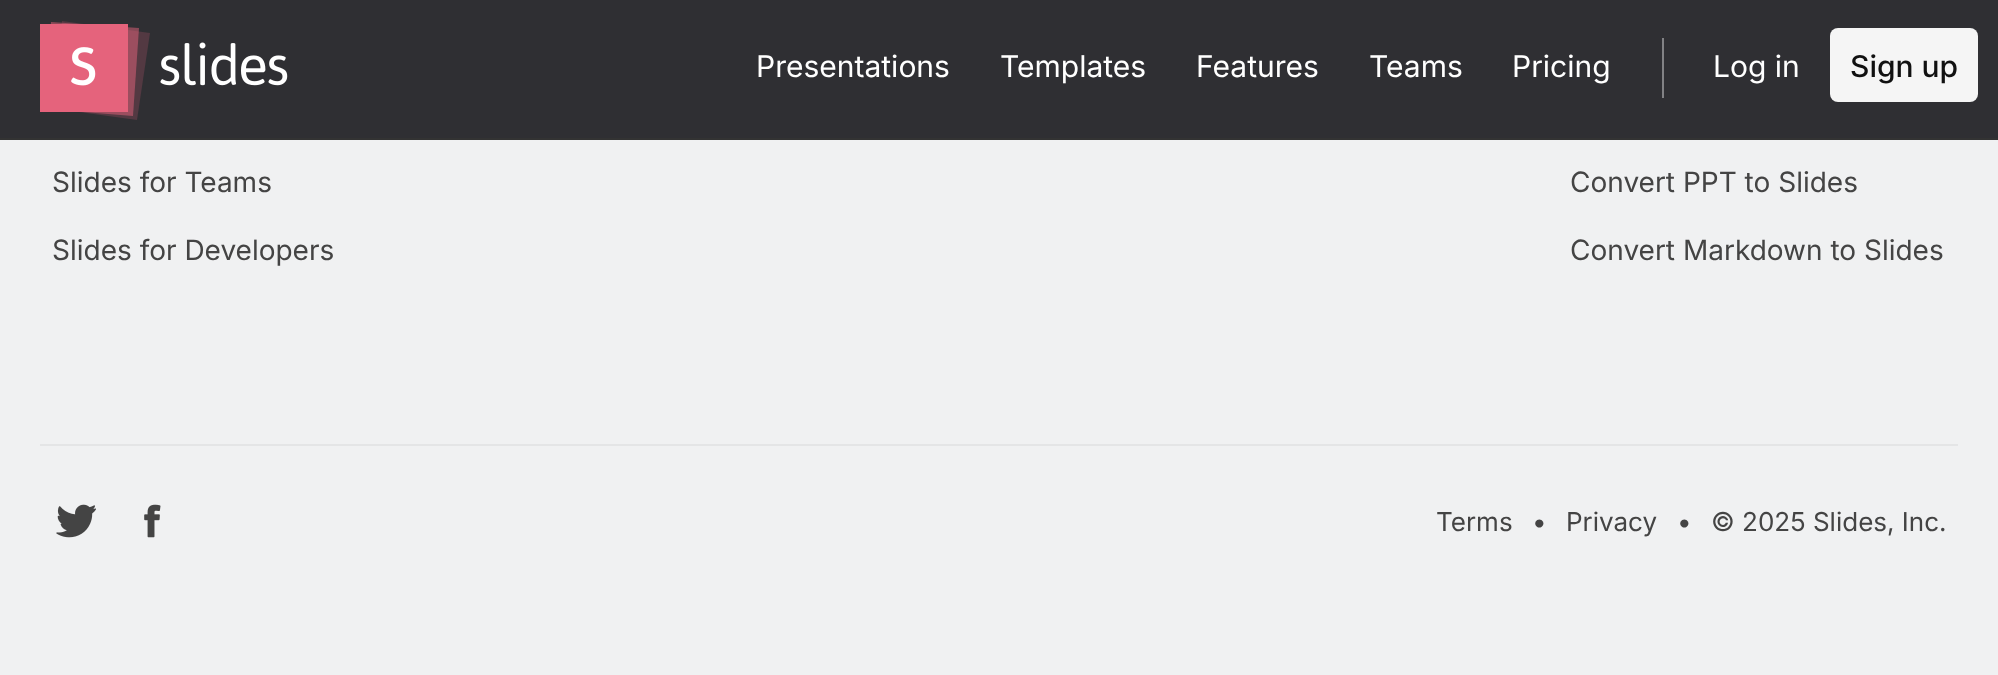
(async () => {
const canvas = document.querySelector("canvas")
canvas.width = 1998
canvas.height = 675
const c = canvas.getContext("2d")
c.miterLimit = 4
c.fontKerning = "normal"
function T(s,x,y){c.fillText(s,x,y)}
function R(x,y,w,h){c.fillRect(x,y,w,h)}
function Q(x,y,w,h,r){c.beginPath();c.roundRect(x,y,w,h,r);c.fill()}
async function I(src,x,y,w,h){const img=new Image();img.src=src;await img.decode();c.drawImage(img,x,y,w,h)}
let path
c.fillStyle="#f0f1f2"
R(0,0,1998,675)
c.fillStyle="#2f2f33"
R(0,0,1998,138)
c.fillStyle="#333"
R(0,138,1998,2)
c.fillStyle="#533942"
path = new Path2D("M62 21l88 12l-13 87l-87-12z")
c.fill(path)
c.fillStyle="#e5637c80"
path = new Path2D("M51 22l88 6l-6 88l-88-7z")
c.fill(path)
c.fillStyle="#e5637c"
R(40,24,88,88)
await I("1.png",71,47,25,39)
await I("2.png",160,42,128,44)
c.font="30px Inter"
c.fillStyle="#fff"
T("Presentations",756,77)
T("Templates",1000,77)
T("Features",1196,77)
T("Teams",1369,77)
T("Pricing",1512,77)
c.fillStyle="#828285"
R(1662,38,2,60)
c.fillStyle="#fff"
T("Log in",1713,77)
c.fillStyle="#f5f5f5"
Q(1830,28,148,74,8)
c.font="500 30px Inter"
c.fillStyle="#111"
T("Sign up",1850,77)
c.font="28px Inter"
c.fillStyle="#444"
T("Slides for Teams",52,192)
T("Slides for Developers",52,260)
T("Convert PPT to Slides",1570,192)
T("Convert Markdown to Slides",1570,260)
c.fillStyle="#e4e5e6"
R(40,444,1918,2)
await I("3.png",56,504,40,34)
await I("4.png",144,504,17,34)
c.font="26px Inter"
c.fillStyle="#444"
T("Terms",1436,531)
T("•",1532,531)
T("Privacy",1566,531)
T("•",1677,531)
T("© 2025 Slides, Inc.",1711,531)
})()
